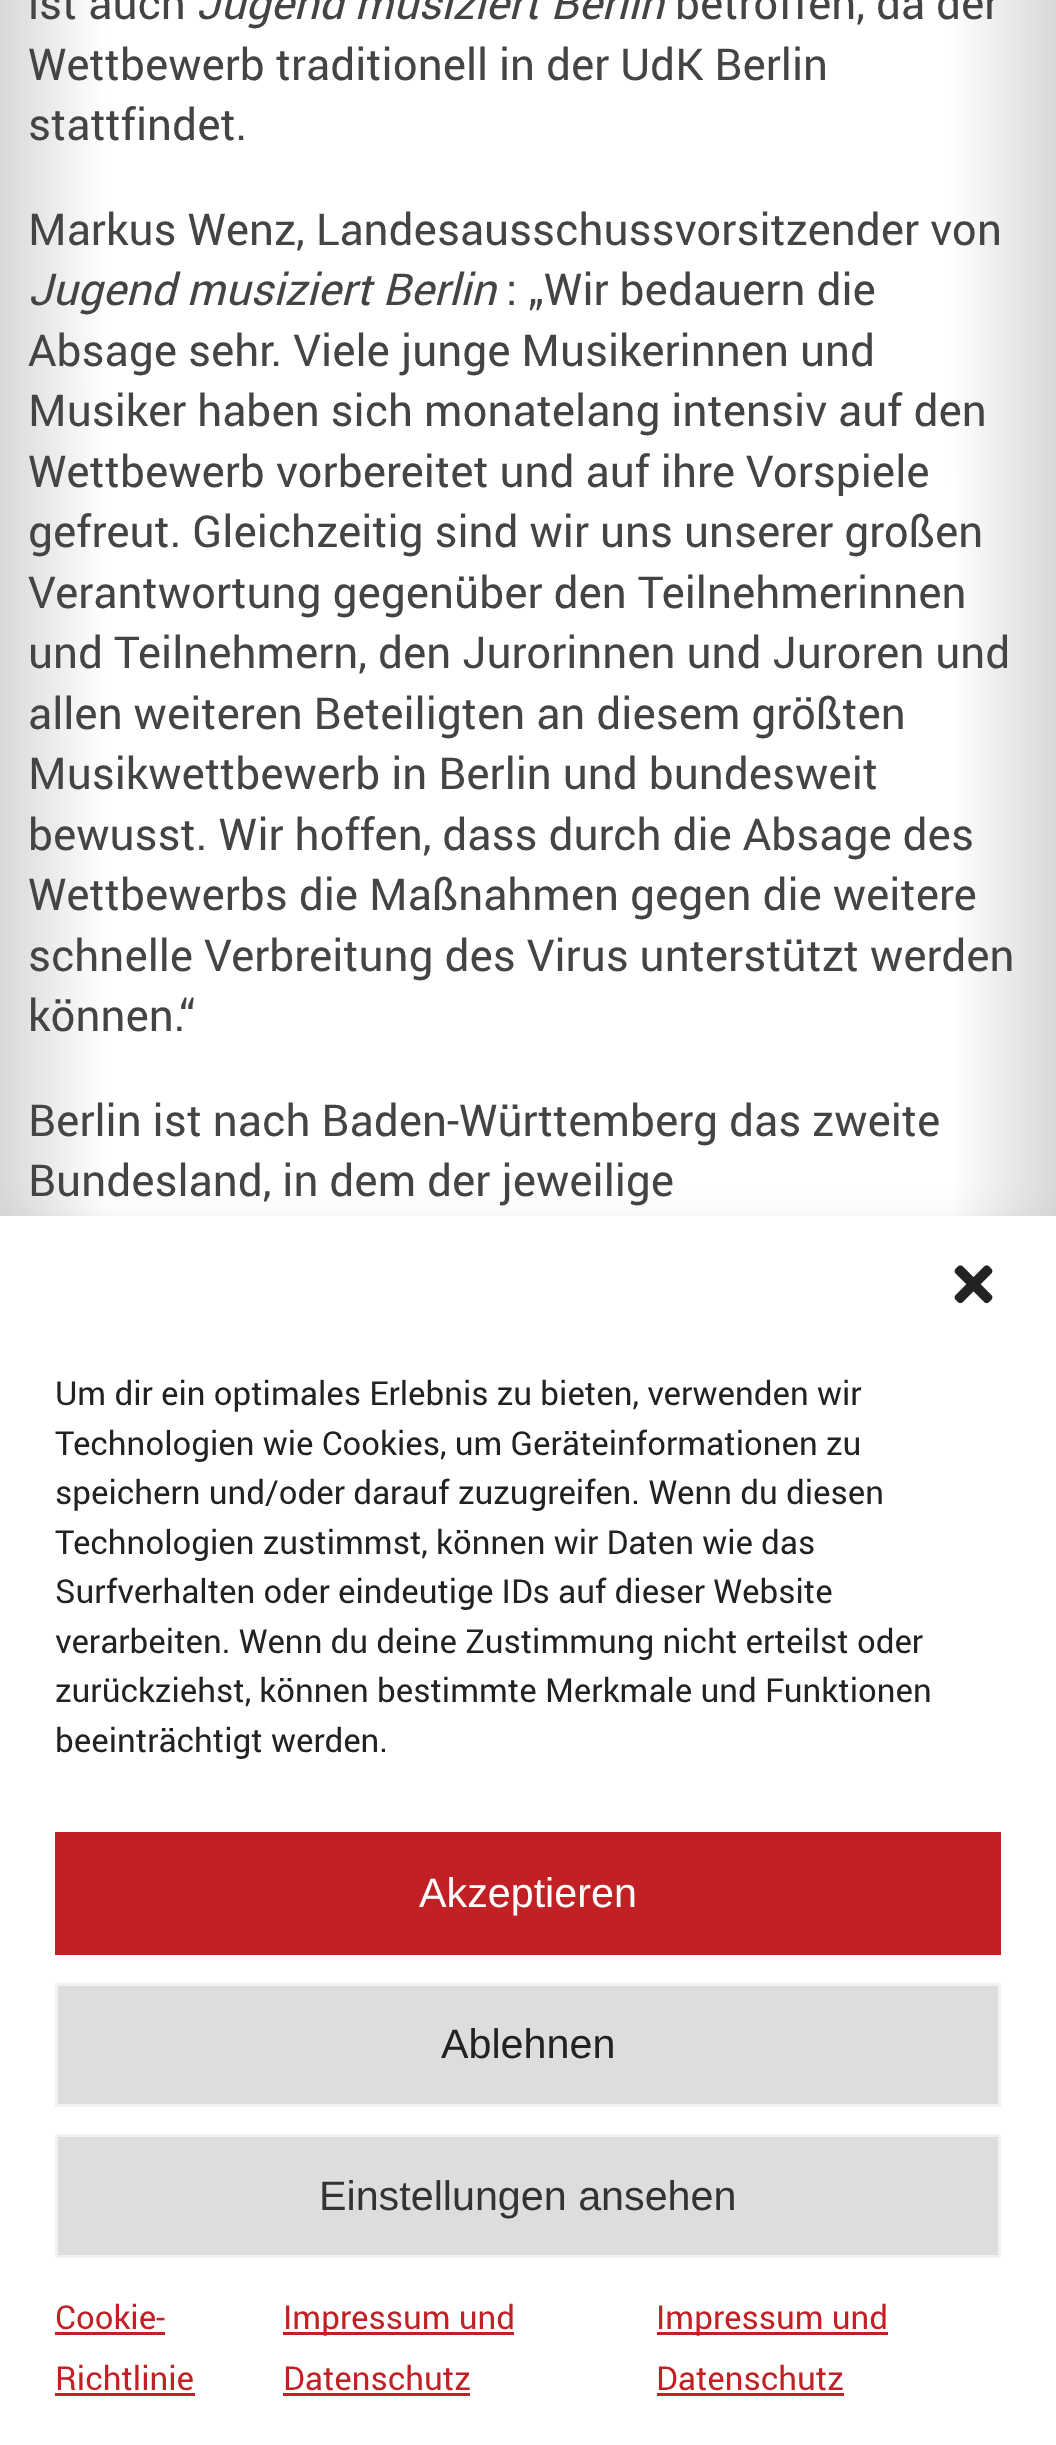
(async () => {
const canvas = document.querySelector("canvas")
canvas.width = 1056
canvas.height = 2445
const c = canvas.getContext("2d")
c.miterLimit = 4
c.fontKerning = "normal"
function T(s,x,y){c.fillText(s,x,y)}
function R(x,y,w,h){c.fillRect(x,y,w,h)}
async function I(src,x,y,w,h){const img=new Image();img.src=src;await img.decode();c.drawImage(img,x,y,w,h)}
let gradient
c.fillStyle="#fff"
R(0,0,1056,2445)
gradient = c.createLinearGradient(0,292,1056,291)
gradient.addColorStop(0,"#d8d8d8")
gradient.addColorStop(.1,"#fff")
gradient.addColorStop(.9,"#fff")
gradient.addColorStop(1,"#d8d8d8")
c.fillStyle = gradient
R(0,0,1056,1216)
c.font="44px Roboto"
c.fillStyle="#444"
T("ist auch",28,19)
c.font="italic 44px Roboto"
T("Jugend musiziert Berlin",196,19)
c.font="44px Roboto"
T("betroffen, da der",675,19)
T("Wettbewerb traditionell in der UdK Berlin",28,80)
T("stattfindet.",28,140)
T("Markus Wenz, Landesausschussvorsitzender von",28,245)
c.font="italic 44px Roboto"
T("Jugend musiziert Berlin",28,305)
c.font="44px Roboto"
T(": „Wir bedauern die",506,305)
T("Absage sehr. Viele junge Musikerinnen und",28,366)
T("Musiker haben sich monatelang intensiv auf den",28,426)
T("Wettbewerb vorbereitet und auf ihre Vorspiele",28,487)
T("gefreut. Gleichzeitig sind wir uns unserer großen",28,547)
T("Verantwortung gegenüber den Teilnehmerinnen",28,608)
T("und Teilnehmern, den Jurorinnen und Juroren und",28,668)
T("allen weiteren Beteiligten an diesem größten",28,729)
T("Musikwettbewerb in Berlin und bundesweit",28,789)
T("bewusst. Wir hoffen, dass durch die Absage des",28,850)
T("Wettbewerbs die Maßnahmen gegen die weitere",28,910)
T("schnelle Verbreitung des Virus unterstützt werden",28,971)
T("können.“",28,1031)
T("Berlin ist nach Baden-Württemberg das zweite",28,1136)
T("Bundesland, in dem der jeweilige",28,1196)
c.fillStyle="#00000030"
c.filter="blur(27.5px)"
c.beginPath()
c.rect(0,1243,1056,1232)
c.fill()
c.filter="none"
c.fillStyle="#fff"
R(0,1216,1056,1229)
await I("1.png",954,1265,39,39)
c.font="33px Roboto"
c.fillStyle="#222"
T("Um dir ein optimales Erlebnis zu bieten, verwenden wir",55,1405)
T("Technologien wie Cookies, um Geräteinformationen zu",55,1455)
T("speichern und/oder darauf zuzugreifen. Wenn du diesen",55,1504)
T("Technologien zustimmst, können wir Daten wie das",55,1554)
T("Surfverhalten oder eindeutige IDs auf dieser Website",55,1603)
T("verarbeiten. Wenn du deine Zustimmung nicht erteilst oder",55,1653)
T("zurückziehst, können bestimmte Merkmale und Funktionen",55,1702)
T("beeinträchtigt werden.",55,1752)
c.fillStyle="#c12124"
R(55,1832,946,123)
c.font="41.25px Liberation Sans"
c.fillStyle="#fff"
T("Akzeptieren",419,1907)
c.fillStyle="#ddd"
c.beginPath()
c.rect(56.5,1984.5,943,121)
c.fill()
c.strokeStyle="#f2f2f2"
c.lineWidth=3
c.stroke()
c.fillStyle="#222"
T("Ablehnen",441,2058)
c.fillStyle="#ddd"
c.beginPath()
c.rect(56.5,2135.5,943,121)
c.fill()
c.stroke()
c.fillStyle="#333"
T("Einstellungen ansehen",319,2210)
c.font="33px Roboto"
c.fillStyle="#c12124"
T("Cookie-",55,2329)
R(55,2332,110,3)
T("Richtlinie",55,2390)
R(55,2393,140,3)
R(283,2332,231,3)
T("Impressum und",283,2329)
T("Datenschutz",283,2390)
R(283,2393,187,3)
R(657,2332,231,3)
T("Impressum und",656,2329)
T("Datenschutz",656,2390)
R(657,2393,187,3)
})()
